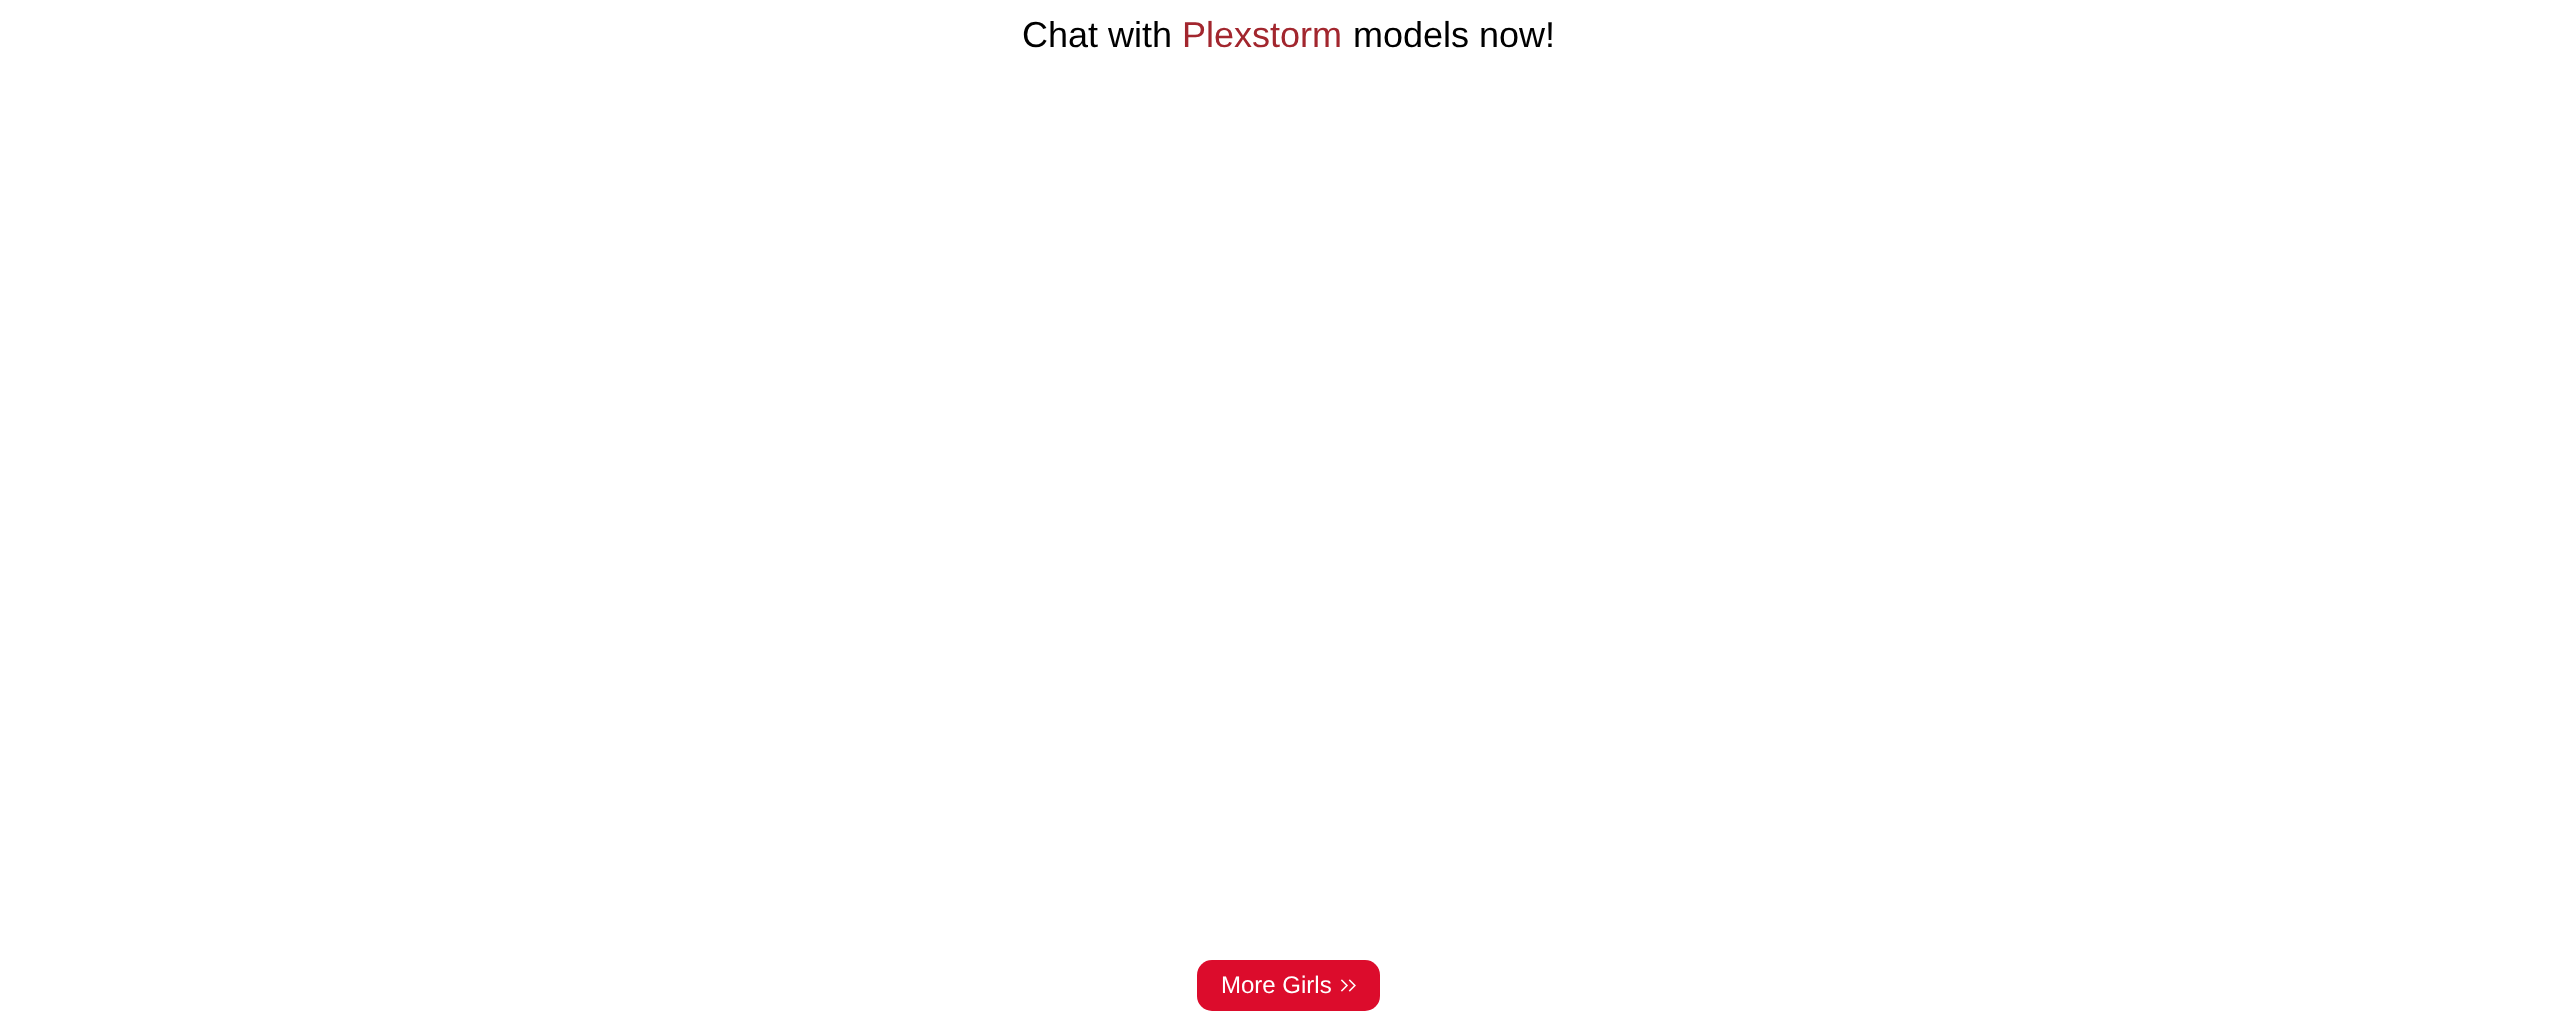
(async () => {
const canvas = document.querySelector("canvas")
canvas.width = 2576
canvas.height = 1017
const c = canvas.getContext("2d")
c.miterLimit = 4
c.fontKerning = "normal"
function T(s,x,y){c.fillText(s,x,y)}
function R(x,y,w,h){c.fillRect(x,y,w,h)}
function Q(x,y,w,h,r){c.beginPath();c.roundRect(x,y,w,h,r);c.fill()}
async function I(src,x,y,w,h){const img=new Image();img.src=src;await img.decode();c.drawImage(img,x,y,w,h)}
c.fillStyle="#fff"
R(0,0,2576,1017)
c.font="36px Liberation Sans"
c.fillStyle="#000"
T("Chat with",1022,47)
c.fillStyle="#a2262e"
T("Plexstorm",1182,47)
c.fillStyle="#000"
T("models now!",1353,47)
c.fillStyle="#dc0c2c"
Q(1197,960,183,51,15)
c.font="24px Liberation Sans"
c.fillStyle="#fff"
T("More Girls",1221,993)
await I("1.png",1340,979,16,13)
})()
